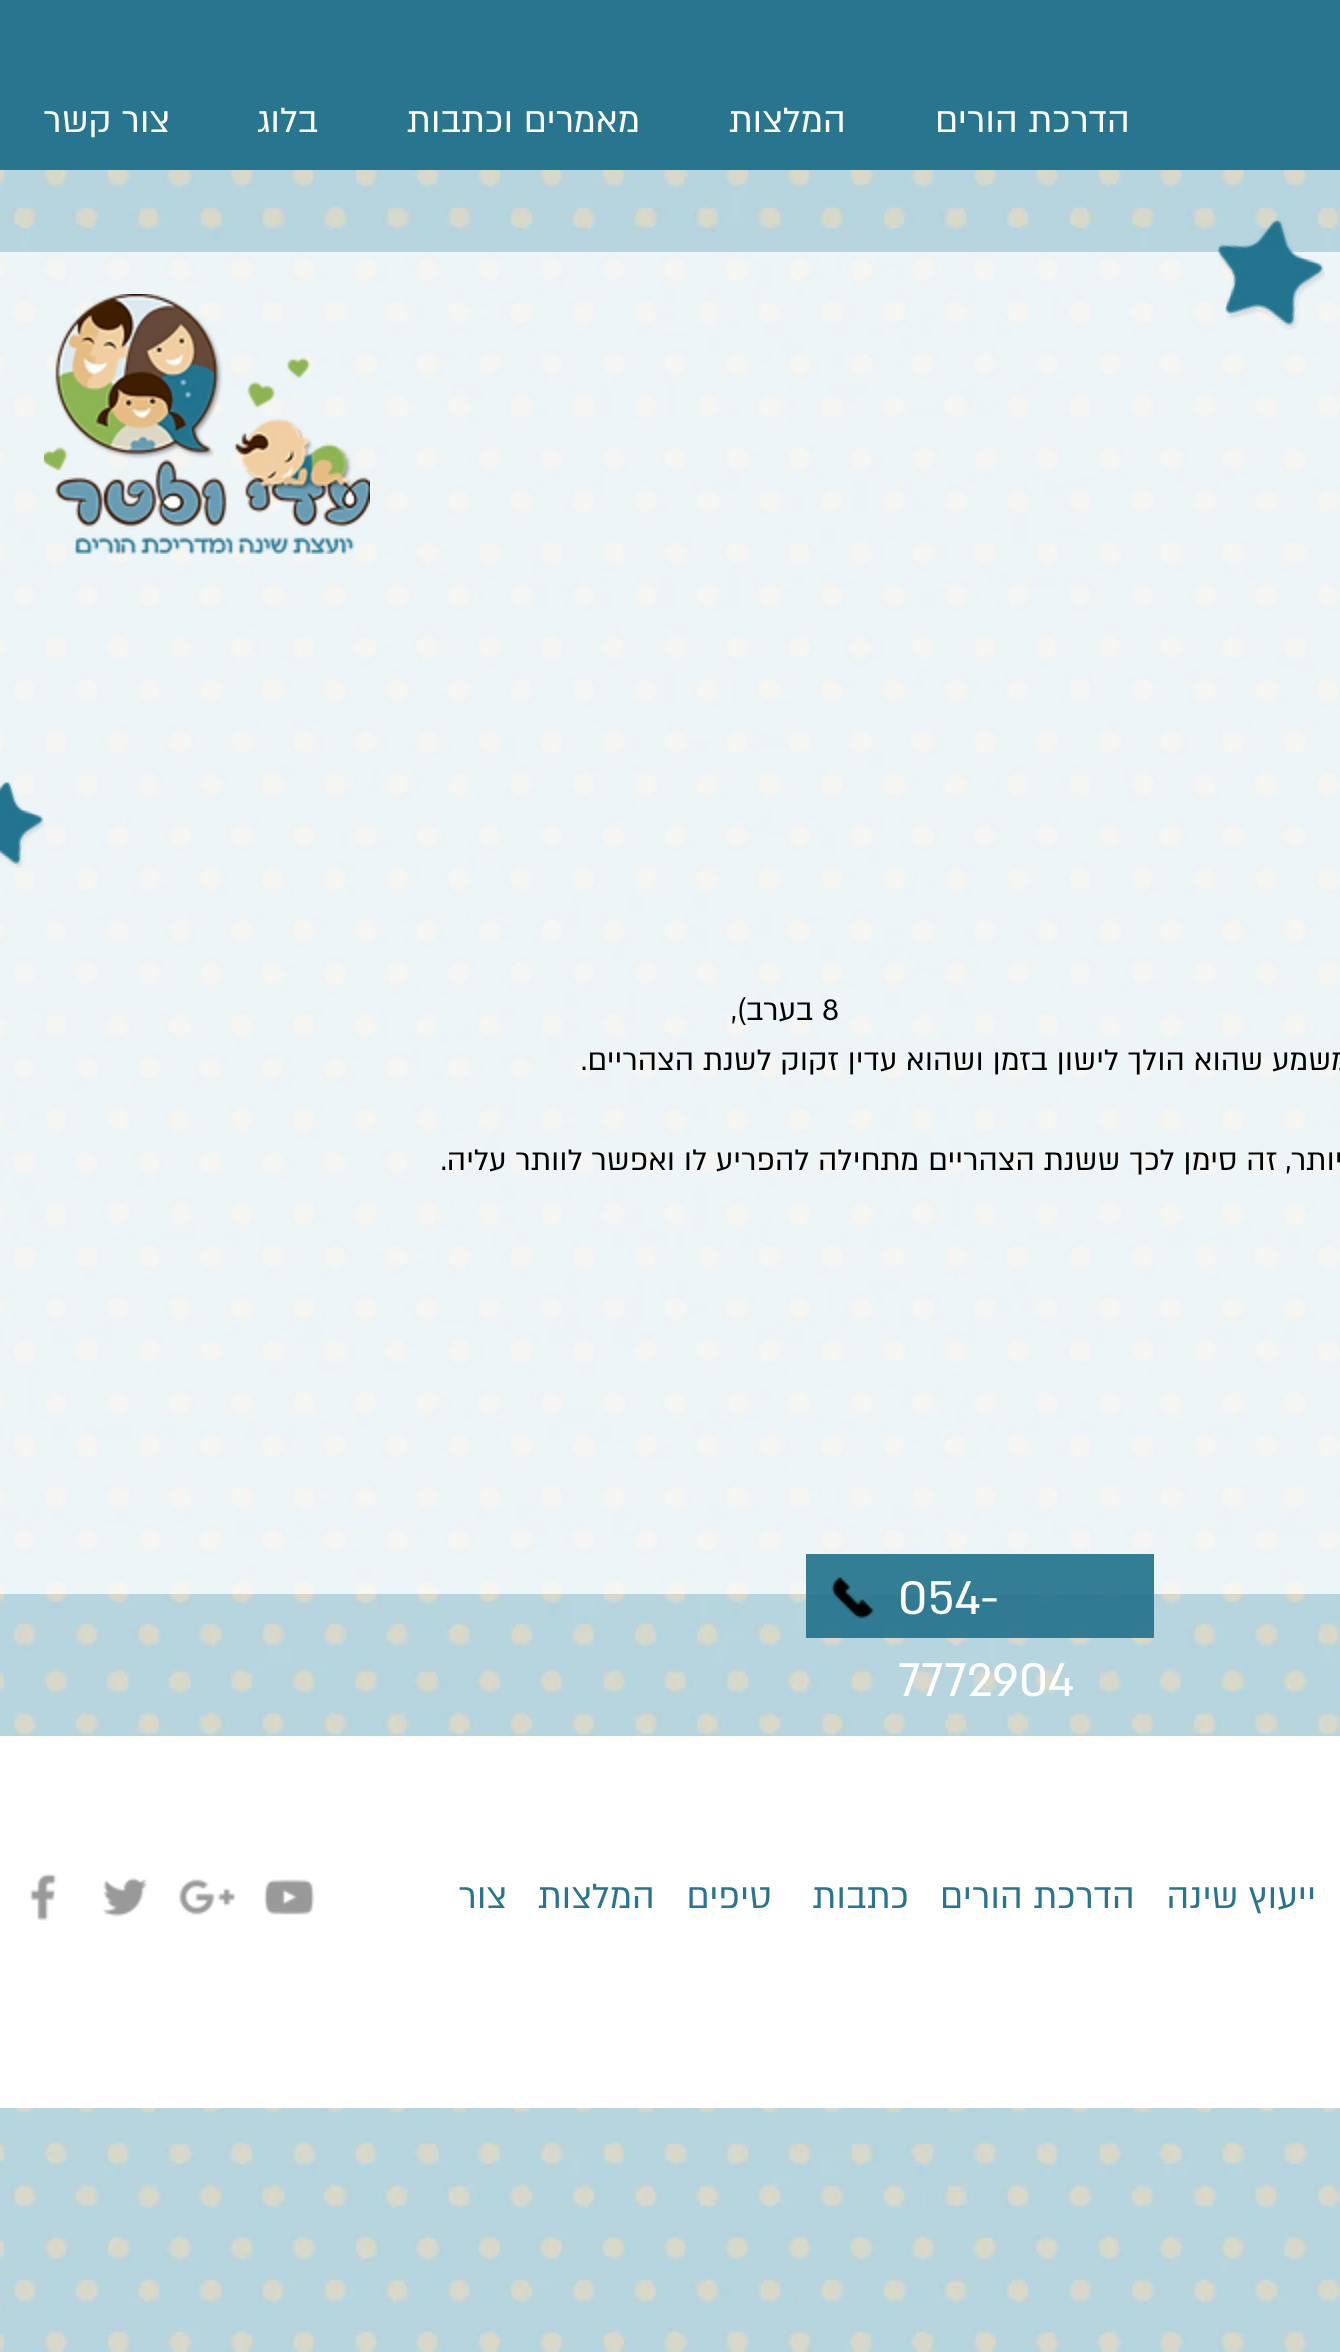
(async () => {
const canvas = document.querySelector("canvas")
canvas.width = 1340
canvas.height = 2352
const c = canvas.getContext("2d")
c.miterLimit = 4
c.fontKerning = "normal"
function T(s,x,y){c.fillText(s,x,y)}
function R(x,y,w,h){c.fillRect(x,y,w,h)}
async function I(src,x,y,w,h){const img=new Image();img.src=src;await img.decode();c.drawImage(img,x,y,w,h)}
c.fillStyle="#fff"
R(0,0,1340,2352)
c.fillStyle="#27758e"
R(0,0,1340,170)
c.direction="rtl"
c.font="40px 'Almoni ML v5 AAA'"
c.fillStyle="#fff"
T("הדרכת הורים",1130,132)
T("המלצות",846,132)
T("מאמרים וכתבות",640,132)
T("בלוג",318,132)
T("צור קשר",170,132)
await I("9.png",0,170,1340,2182)
c.fillStyle="#ffffffbf"
R(0,252,1340,1342)
await I("1.png",44,294,326,260)
await I("2.png",0,781,45,87)
await I("3.png",1216,219,109,111)
c.direction="ltr"
c.font="34px 'Almoni ML v5 AAA'"
c.fillStyle="#000"
T("8",822,1020)
c.direction="rtl"
T("בערב),",813,1020)
T("דקות, משמע שהוא הולך לישון בזמן ושהוא עדין זקוק לשנת הצהריים.",1429,1070)
T("דקות או יותר, זה סימן לכך ששנת הצהריים מתחילה להפריע לו ואפשר לוותר עליה.",1451,1170)
c.fillStyle="#27758ef0"
R(806,1554,348,84)
c.direction="ltr"
c.font="54px 'Almoni ML v5 AAA'"
c.fillStyle="#fff"
T("054-",898,1614)
T("7772904",898,1696)
await I("4.png",831,1576,44,43)
R(0,1736,1340,372)
c.direction="rtl"
c.font="40px 'Almoni ML v5 AAA'"
c.fillStyle="#27758e"
T("ייעוץ שינה",1316,1908)
T("הדרכת הורים",1135,1908)
T("כתבות",909,1908)
T("טיפים",772,1908)
T("המלצות",655,1908)
T("צור",507,1908)
await I("5.png",264,1879,51,36)
await I("6.png",179,1879,57,36)
await I("7.png",103,1877,45,40)
await I("8.png",29,1873,28,48)
})()
